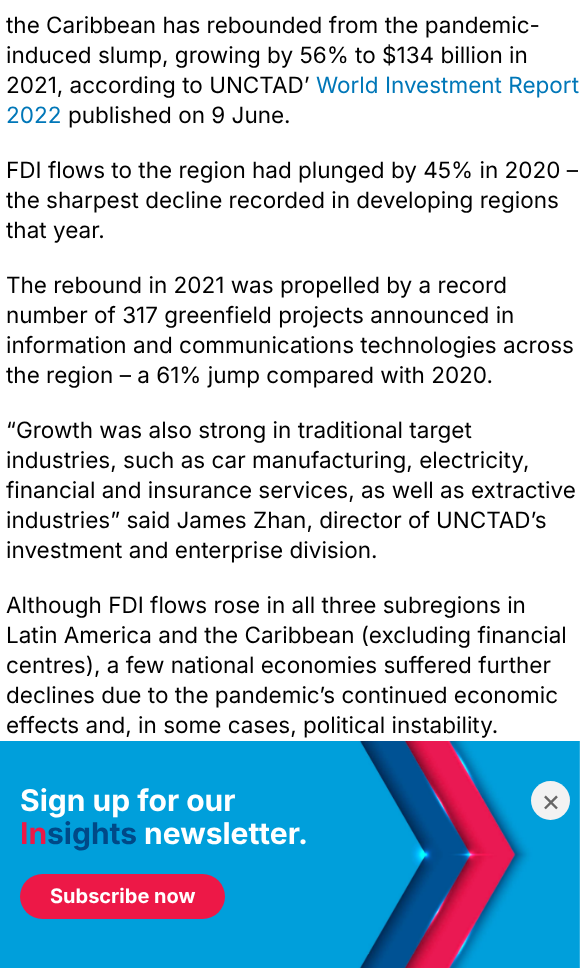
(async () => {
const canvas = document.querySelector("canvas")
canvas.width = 580
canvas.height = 968
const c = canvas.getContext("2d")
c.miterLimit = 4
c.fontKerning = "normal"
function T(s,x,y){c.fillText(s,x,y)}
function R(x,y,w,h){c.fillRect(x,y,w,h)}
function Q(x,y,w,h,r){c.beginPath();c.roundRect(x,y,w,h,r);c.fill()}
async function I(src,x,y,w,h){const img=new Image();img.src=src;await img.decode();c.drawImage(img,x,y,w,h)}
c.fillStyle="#fff"
R(0,0,580,968)
c.font="22.5px Inter"
c.fillStyle="#000"
T("the Caribbean has rebounded from the pandemic-",6,33)
T("induced slump, growing by 56% to $134 billion in",6,63)
T("2021, according to UNCTAD’",6,93)
c.fillStyle="#0077b8"
T("World Investment Report",316,93)
T("2022",6,123)
c.fillStyle="#000"
T("published on 9 June.",68,123)
T("FDI flows to the region had plunged by 45% in 2020 –",6,178)
T("the sharpest decline recorded in developing regions",6,208)
T("that year.",6,238)
T("The rebound in 2021 was propelled by a record",6,293)
T("number of 317 greenfield projects announced in",6,323)
T("information and communications technologies across",6,353)
T("the region – a 61% jump compared with 2020.",6,383)
T("“Growth was also strong in traditional target",6,438)
T("industries, such as car manufacturing, electricity,",6,468)
T("financial and insurance services, as well as extractive",6,498)
T("industries” said James Zhan, director of UNCTAD’s",6,528)
T("investment and enterprise division.",6,558)
T("Although FDI flows rose in all three subregions in",6,613)
T("Latin America and the Caribbean (excluding financial",6,643)
T("centres), a few national economies suffered further",6,673)
T("declines due to the pandemic’s continued economic",6,703)
T("effects and, in some cases, political instability.",6,733)
await I("1.png",0,741,580,227)
c.font="bold 30px Inter"
c.fillStyle="#fff"
T("Sign up for our",20,811)
c.fillStyle="#ed1847"
T("In",20,844)
c.fillStyle="#004987"
T("sights",47,844)
c.fillStyle="#fff"
T("newsletter.",144,844)
c.fillStyle="#f2f2f2"
c.beginPath()
c.arc(550.5,800.5,19.5,0,7)
c.fill()
c.font="30px Inter"
c.fillStyle="#666"
T("×",541,811)
c.fillStyle="#ed1847"
Q(20,874,205,45,22.5)
c.font="bold 20px Inter"
c.fillStyle="#fff"
T("Subscribe now",50,903)
})()
